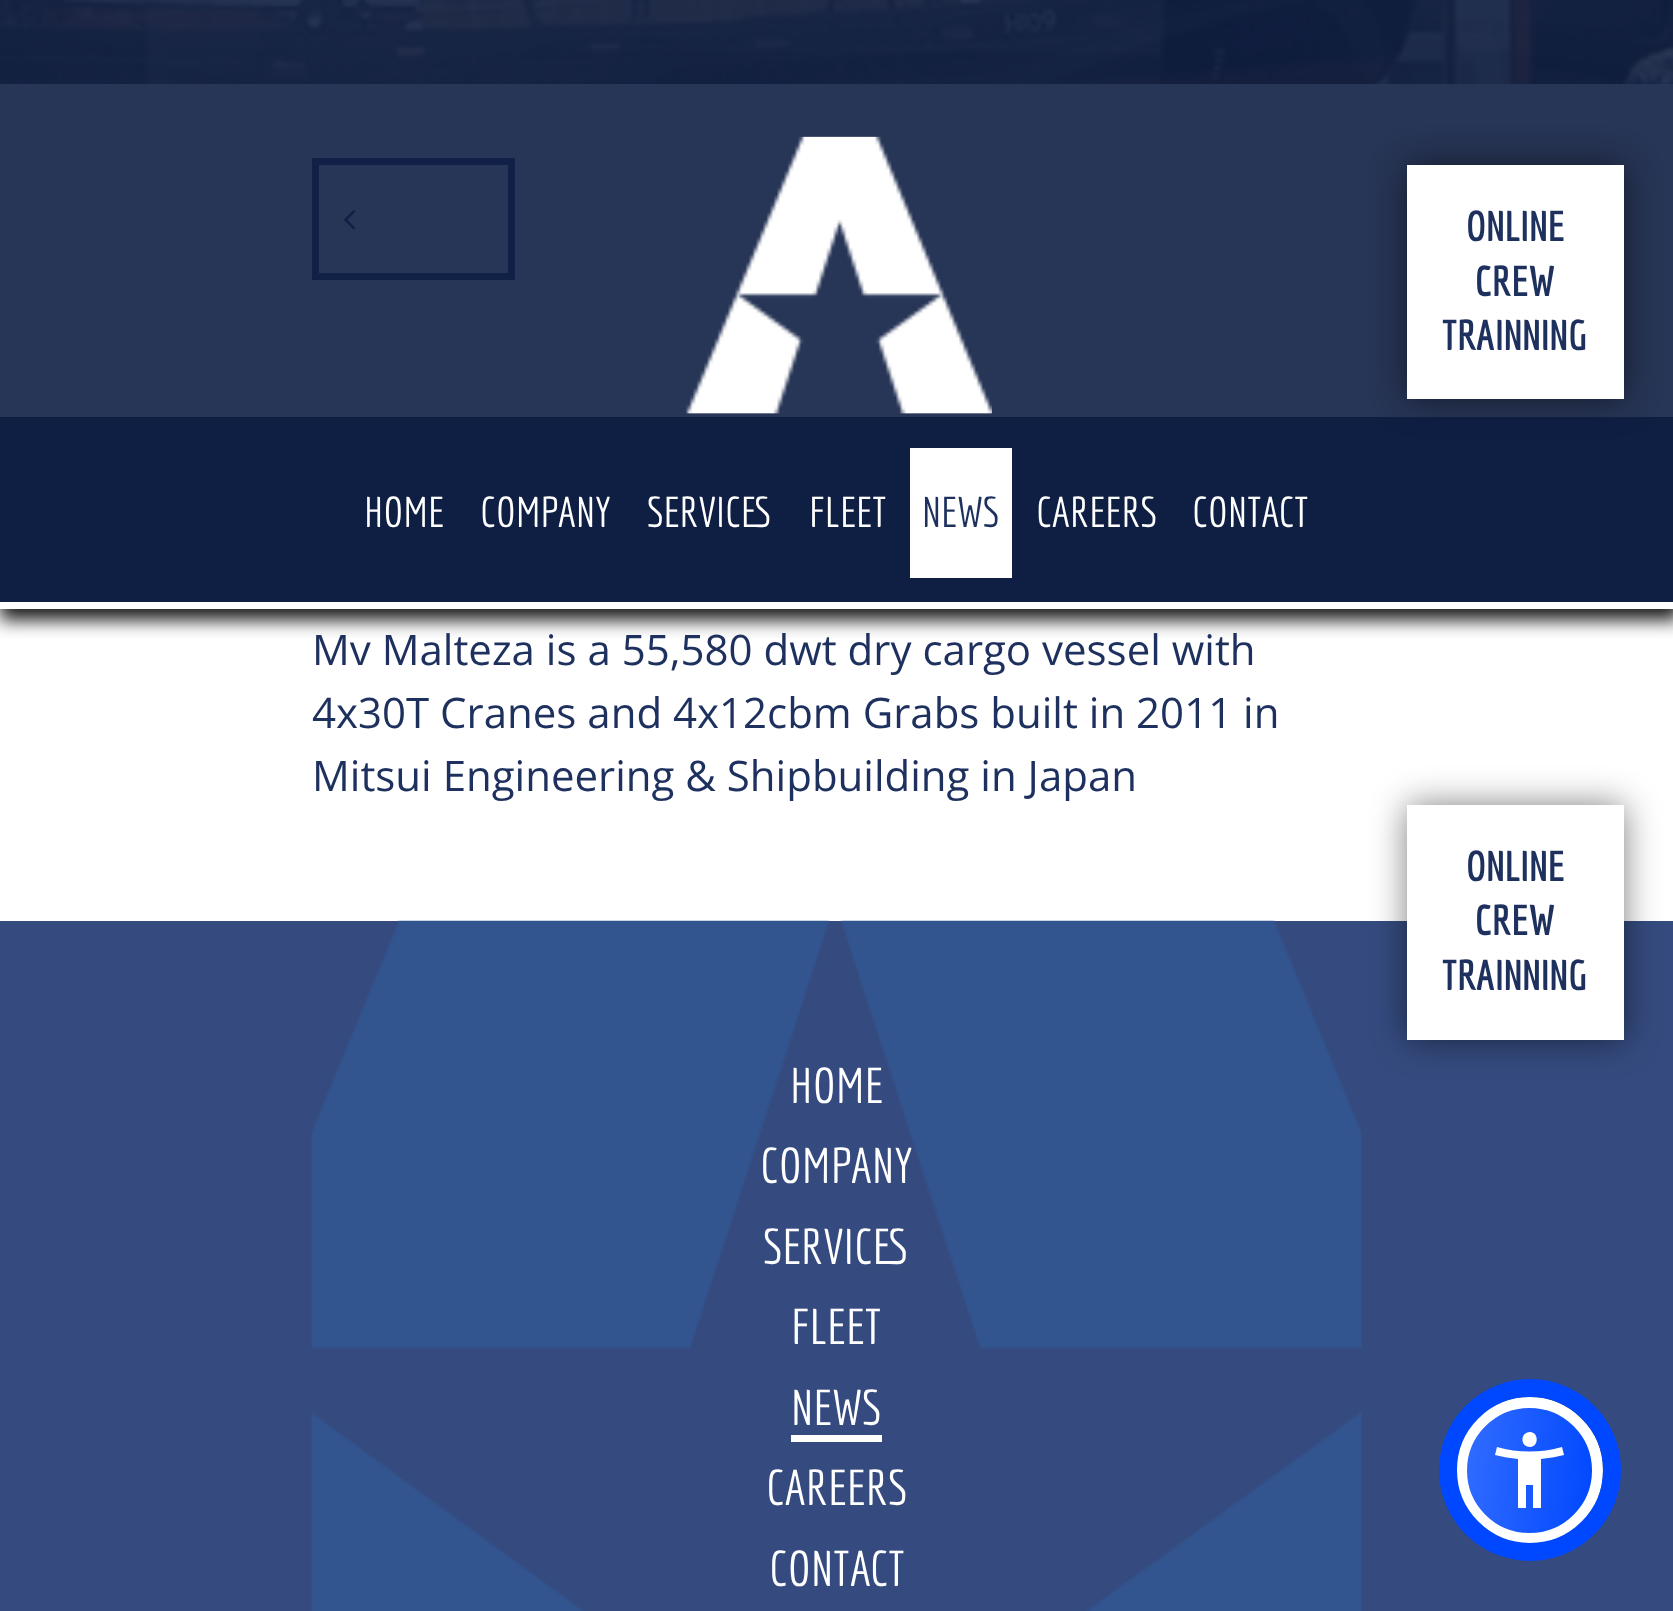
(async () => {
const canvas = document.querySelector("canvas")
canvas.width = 1673
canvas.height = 1611
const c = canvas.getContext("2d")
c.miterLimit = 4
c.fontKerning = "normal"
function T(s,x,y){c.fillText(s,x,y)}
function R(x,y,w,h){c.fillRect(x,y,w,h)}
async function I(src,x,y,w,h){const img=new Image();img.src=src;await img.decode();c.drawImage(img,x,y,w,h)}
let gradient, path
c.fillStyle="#354b7f"
R(0,0,1673,1611)
await I("2.png",0,0,1673,84)
c.fillStyle="#fff"
R(0,84,1673,837)
c.strokeStyle="#1d305e"
c.lineWidth=7
c.strokeRect(315.5,161.5,196,115)
await I("3.png",343,210,13,20)
c.save()
c.beginPath()
c.rect(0,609,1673,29)
c.clip()
c.fillStyle="#000000e6"
c.filter="blur(9px)"
c.beginPath()
c.rect(0,4,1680,616)
c.fill()
c.filter="none"
c.restore()
c.fillStyle="#0f1f44e6"
R(0,0,1673,417)
await I("1.png",686,136,306,278)
c.fillStyle="#0f1f44"
R(0,417,1673,185)
c.fillStyle="#00000080"
c.filter="blur(17.5px)"
c.beginPath()
c.rect(1407,165,217,234)
c.fill()
c.filter="none"
c.fillStyle="#fff"
R(1407,165,217,234)
c.font="bold 42px Economica"
c.fillStyle="#1d305e"
T("ONLINE",1466,241)
T("CREW",1475,296)
T("TRAINNING",1442,350)
c.font="42px Economica"
c.fillStyle="#fff"
T("HOME",364,527)
T("COMPANY",480,527)
T("SERVICES",647,527)
T("FLEET",809,527)
R(910,448,102,130)
c.fillStyle="#1d305e"
T("NEWS",922,527)
c.fillStyle="#fff"
T("CAREERS",1036,527)
T("CONTACT",1192,527)
c.font="42px Open Sans"
c.fillStyle="#1d305e"
T("Mv Malteza is a 55,580 dwt dry cargo vessel with",312,665)
T("4x30T Cranes and 4x12cbm Grabs built in 2011 in",312,728)
T("Mitsui Engineering & Shipbuilding in Japan",312,791)
await I("4.png",311,920,1051,691)
c.fillStyle="#00000080"
c.filter="blur(17.5px)"
c.beginPath()
c.rect(1407,805,217,235)
c.fill()
c.filter="none"
c.fillStyle="#fff"
R(1407,805,217,235)
c.font="bold 42px Economica"
c.fillStyle="#1d305e"
T("ONLINE",1466,881)
T("CREW",1475,935)
T("TRAINNING",1442,990)
c.font="49px Economica"
c.fillStyle="#fff"
T("HOME",790,1103)
T("COMPANY",760,1183)
T("SERVICES",763,1264)
T("FLEET",791,1344)
T("NEWS",791,1425)
R(791,1435,91,7)
T("CAREERS",766,1505)
T("CONTACT",769,1586)
c.save()
c.beginPath()
c.roundRect(1456,1397,147,147,73.5)
c.clip()
gradient = c.createLinearGradient(1461,1463,1598,1477)
gradient.addColorStop(0,"#326cff")
gradient.addColorStop(1,"#0048ff")
c.fillStyle = gradient
R(1467,1407,126,126)
c.restore()
c.beginPath()
c.arc(1529.5,1470.5,68,0,7)
c.strokeStyle="#fff"
c.lineWidth=11
c.stroke()
c.beginPath()
c.arc(1530,1470,82,0,7)
c.strokeStyle="#0048ff"
c.lineWidth=18
c.stroke()
path = new Path2D("M1562 1447c-21 6-44 6-65 0l-2 8c7 2 16 3 23 4v49h8v-23h7v23h8v-49c7-1 16-2 23-4zm-32 0c9 0 9-15 0-15c-10 0-10 15 0 15z")
c.fill(path)
})()
